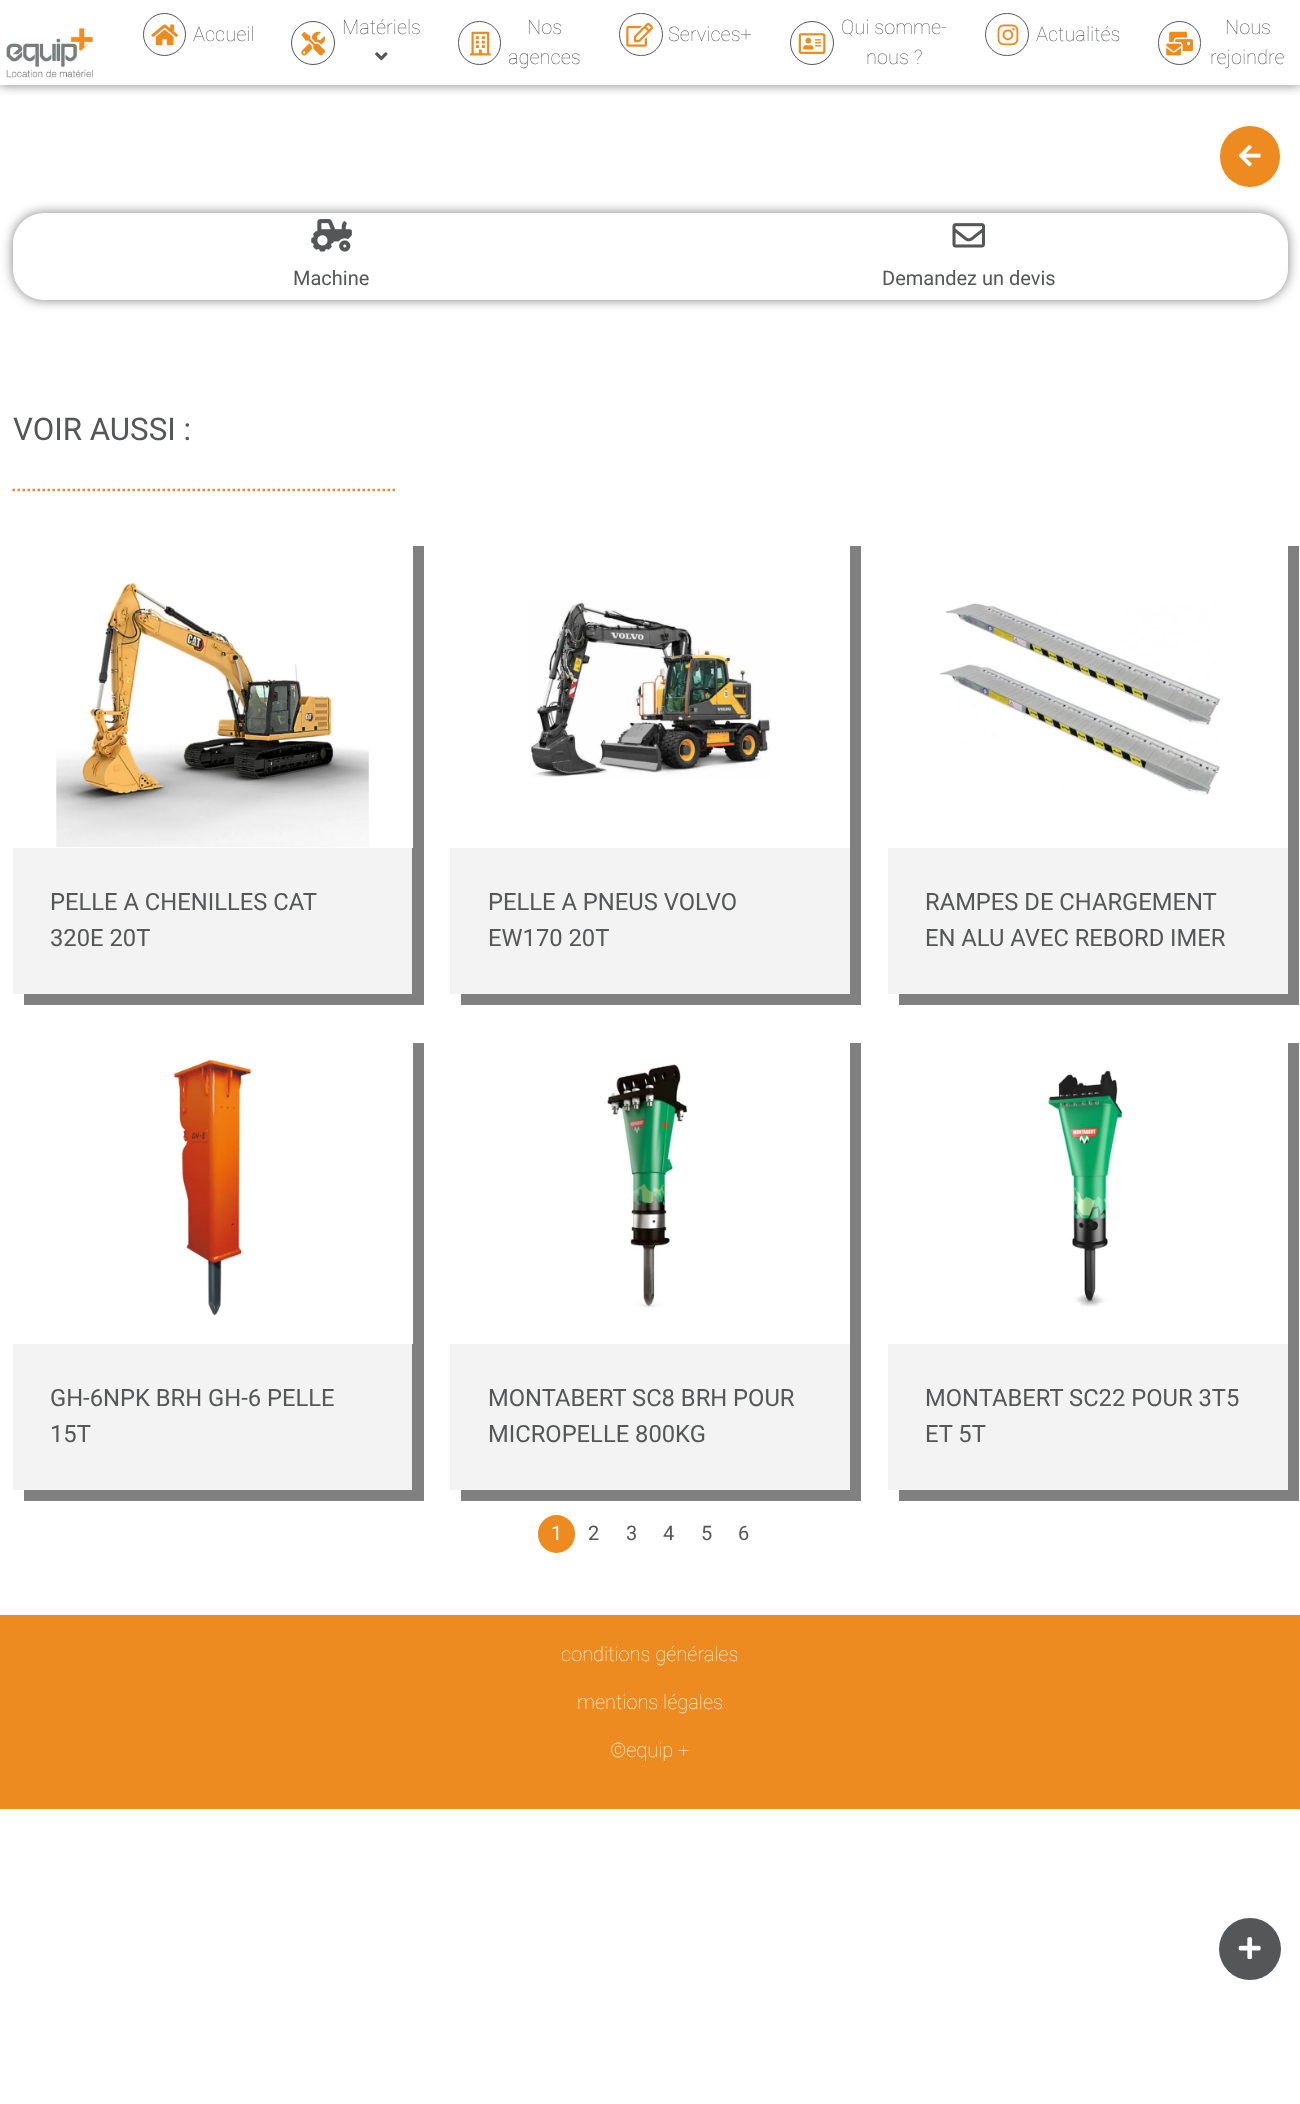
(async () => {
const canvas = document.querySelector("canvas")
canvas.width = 1300
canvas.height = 2104
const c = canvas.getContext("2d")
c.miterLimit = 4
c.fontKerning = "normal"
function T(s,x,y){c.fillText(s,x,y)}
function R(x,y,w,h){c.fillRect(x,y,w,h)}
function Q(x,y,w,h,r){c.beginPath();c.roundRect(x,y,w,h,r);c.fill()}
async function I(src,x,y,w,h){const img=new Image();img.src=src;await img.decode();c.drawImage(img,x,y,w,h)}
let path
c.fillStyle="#fff"
R(0,0,1300,2104)
c.save()
c.beginPath()
c.rect(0,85,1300,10)
c.clip()
c.fillStyle="#00000080"
c.filter="blur(6px)"
c.beginPath()
c.rect(0,0,1300,85)
c.fill()
c.filter="none"
c.restore()
await I("1.png",6,28,87,50)
c.beginPath()
c.arc(164.5,34.5,21,0,7)
c.strokeStyle="#545657"
c.stroke()
await I("2.png",151,24,27,22)
c.font="100 20px Roboto"
c.fillStyle="#545657"
T("Accueil",193,41)
c.beginPath()
c.arc(313,43,21.5,0,7)
c.stroke()
await I("3.png",301,31,25,25)
T("Matériels",342,34)
await I("4.png",375,52,13,9)
c.beginPath()
c.roundRect(458.5,21.5,42,43,21)
c.stroke()
await I("5.png",470,31,21,25)
T("Nos",527,34)
T("agences",508,64)
c.beginPath()
c.roundRect(619.5,13.5,43,42,21)
c.stroke()
await I("6.png",626,23,27,24)
T("Services+",668,41)
c.beginPath()
c.arc(812,43,21.5,0,7)
c.stroke()
await I("7.png",798,33,28,21)
T("Qui somme-",841,34)
T("nous ?",866,64)
c.beginPath()
c.roundRect(985.5,13.5,43,42,21)
c.stroke()
await I("8.png",997,24,22,22)
T("Actualités",1036,41)
c.beginPath()
c.roundRect(1158.5,21.5,42,43,21)
c.stroke()
await I("9.png",1166,31,27,25)
T("Nous",1225,34)
T("rejoindre",1210,64)
c.save()
path = new Path2D("M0 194h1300v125h-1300zm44 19h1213c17 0 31 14 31 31v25c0 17-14 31-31 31h-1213c-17 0-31-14-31-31v-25c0-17 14-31 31-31z")
c.clip(path,"evenodd")
c.fillStyle="#00000080"
c.filter="blur(6px)"
c.beginPath()
c.roundRect(13,213,1275,87,31)
c.fill()
c.filter="none"
c.restore()
await I("10.png",311,219,41,33)
c.font="20px Roboto"
T("Machine",293,285)
await I("11.png",952,223,33,25)
T("Demandez un devis",882,285)
c.font="31.25px Roboto"
T("VOIR AUSSI :",13,440)
path = new Path2D("M12.5 490h382.5")
c.strokeStyle="#ee8b20"
c.lineWidth=2.5
c.setLineDash([2.5,2.5])
c.stroke(path)
c.fillStyle="#808080"
path = new Path2D("M24 994v11h400v-459h-12v448z")
c.fill(path)
c.fillStyle="#fff"
R(412,546,1,302)
await I("12.png",56,582,313,266)
c.fillStyle="#54565712"
R(13,848,400,146)
c.font="23.75px Roboto"
c.fillStyle="#545657"
T("PELLE A CHENILLES CAT",50,910)
T("320E 20T",50,946)
c.fillStyle="#808080"
path = new Path2D("M461 994v11h400v-459h-11v448z")
c.fill(path)
await I("13.png",529,600,242,178)
c.fillStyle="#f3f3f3"
R(450,848,400,146)
c.fillStyle="#545657"
T("PELLE A PNEUS VOLVO",488,910)
T("EW170 20T",488,946)
c.fillStyle="#808080"
path = new Path2D("M899 994v11h400v-459h-11v448z")
c.fill(path)
await I("14.png",939,603,282,192)
c.fillStyle="#f3f3f3"
R(888,848,400,146)
c.fillStyle="#545657"
T("RAMPES DE CHARGEMENT",925,910)
T("EN ALU AVEC REBORD IMER",925,946)
c.fillStyle="#808080"
path = new Path2D("M24 1490v11h400v-458h-12v447z")
c.fill(path)
c.fillStyle="#fff"
R(412,1043,1,301)
await I("15.png",173,1059,79,257)
c.fillStyle="#54565712"
R(13,1344,400,146)
c.fillStyle="#545657"
T("GH-6NPK BRH GH-6 PELLE",50,1406)
T("15T",50,1442)
c.fillStyle="#808080"
path = new Path2D("M461 1490v11h400v-458h-11v447z")
c.fill(path)
await I("16.png",607,1064,81,244)
c.fillStyle="#f3f3f3"
R(450,1344,400,146)
c.fillStyle="#545657"
T("MONTABERT SC8 BRH POUR",488,1406)
T("MICROPELLE 800KG",488,1442)
c.fillStyle="#808080"
path = new Path2D("M899 1490v11h400v-458h-11v447z")
c.fill(path)
await I("17.png",1047,1070,77,237)
c.fillStyle="#f3f3f3"
R(888,1344,400,146)
c.fillStyle="#545657"
T("MONTABERT SC22 POUR 3T5",925,1406)
T("ET 5T",925,1442)
c.fillStyle="#ee8b20"
Q(538,1515,37,38,18.5)
c.font="20px Roboto"
c.fillStyle="#fff"
T("1",551,1540)
c.fillStyle="#545657"
T("2",588,1540)
T("3",626,1540)
T("4",663,1540)
T("5",701,1540)
T("6",738,1540)
c.fillStyle="#ee8b20"
R(0,1615,1300,194)
c.font="100 20px Roboto"
c.fillStyle="#fff"
T("conditions générales",561,1661)
T("mentions légales",577,1709)
T("©equip +",610,1757)
c.fillStyle="#ee8b20"
c.beginPath()
c.roundRect(1219.5,125.5,61,62,30.5)
c.fill()
c.strokeStyle="#fff"
c.lineWidth=1
c.setLineDash([])
c.stroke()
await I("18.png",1238,145,23,22)
c.fillStyle="#545657"
c.beginPath()
c.arc(1250,1949,31,0,7)
c.fill()
await I("19.png",1238,1937,23,23)
})()
